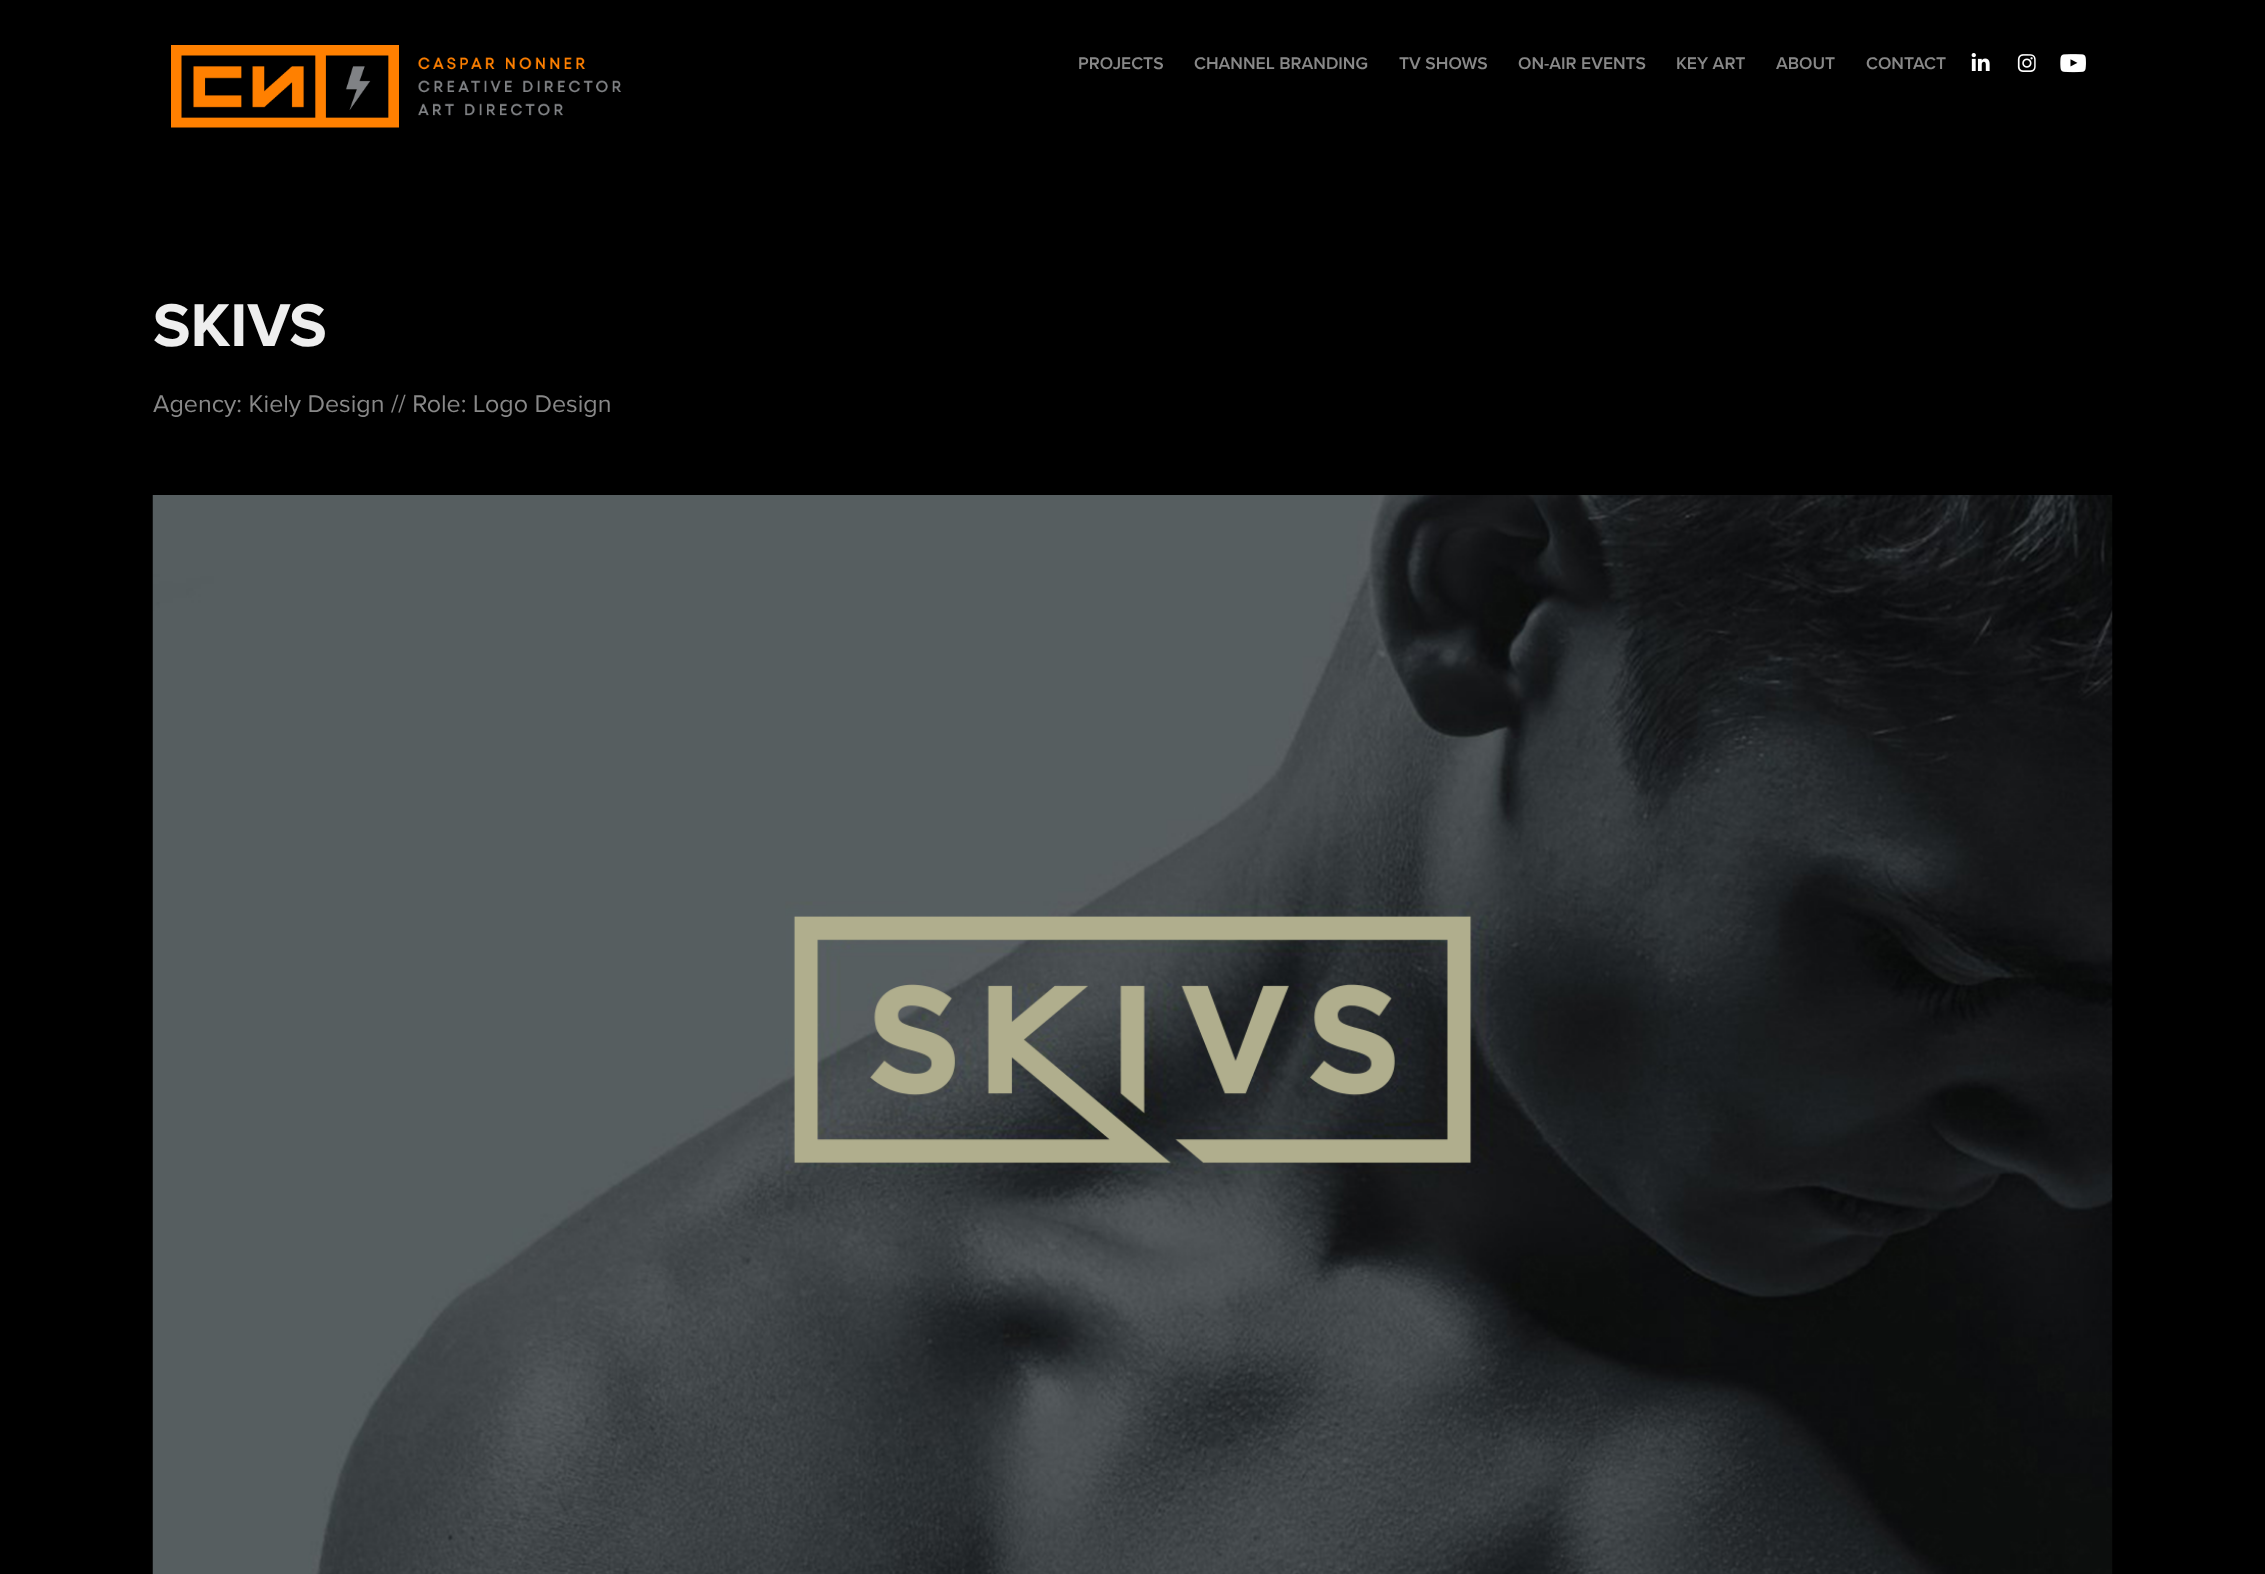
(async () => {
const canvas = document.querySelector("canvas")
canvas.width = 2265
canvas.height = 1574
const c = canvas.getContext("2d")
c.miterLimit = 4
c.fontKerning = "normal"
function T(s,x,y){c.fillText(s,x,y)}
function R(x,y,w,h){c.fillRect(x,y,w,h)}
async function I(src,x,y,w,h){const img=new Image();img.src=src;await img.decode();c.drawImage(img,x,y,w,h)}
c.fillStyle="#000"
R(0,0,2265,1574)
await I("1.png",171,45,451,83)
c.font="600 17.5px Proxima Nova"
c.fillStyle="#888"
T("PROJECTS",1078,69)
T("CHANNEL BRANDING",1194,69)
T("TV SHOWS",1399,69)
T("ON-AIR EVENTS",1518,69)
T("KEY ART",1676,69)
T("ABOUT",1776,69)
T("CONTACT",1866,69)
await I("2.png",1971,53,19,18)
await I("3.png",2017,54,19,18)
await I("4.png",2060,54,26,19)
c.font="bold 62.5px Proxima Nova"
c.fillStyle="#eee"
T("SKIVS",153,346)
c.font="25px Proxima Nova"
c.fillStyle="#888"
T("Agency: Kiely Design // Role: Logo Design",153,412)
await I("5.png",152,495,1961,1079)
})()
